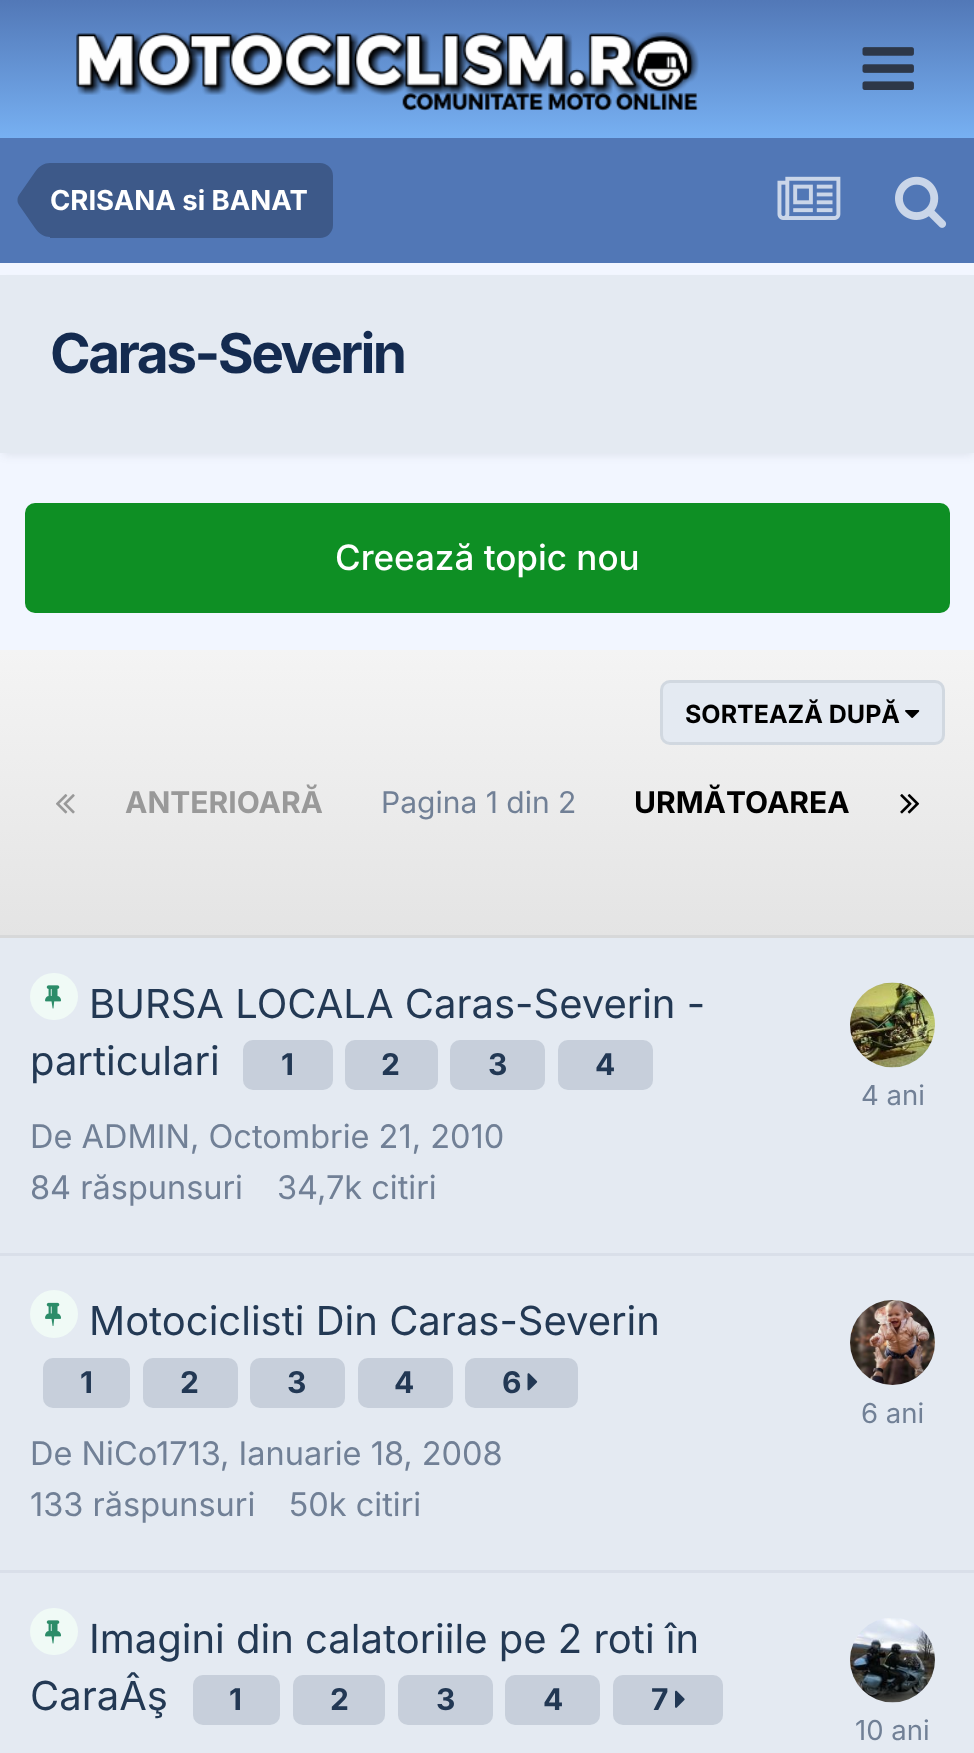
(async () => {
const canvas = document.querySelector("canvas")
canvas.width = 974
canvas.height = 1753
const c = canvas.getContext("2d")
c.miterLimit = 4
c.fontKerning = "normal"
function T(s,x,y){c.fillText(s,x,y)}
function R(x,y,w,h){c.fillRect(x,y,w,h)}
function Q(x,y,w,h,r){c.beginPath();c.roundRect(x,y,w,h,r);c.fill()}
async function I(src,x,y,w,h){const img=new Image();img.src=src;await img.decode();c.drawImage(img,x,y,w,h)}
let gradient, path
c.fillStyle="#f2f6ff"
R(0,0,974,1753)
gradient = c.createLinearGradient(488,0,488,138)
gradient.addColorStop(0,"#5278b7")
gradient.addColorStop(1,"#77b0f2")
c.fillStyle = gradient
R(0,0,974,138)
await I("1.png",76,32,623,79)
await I("2.png",862,47,52,43)
c.fillStyle="#5177b6"
R(0,138,974,125)
c.fillStyle="#3d5989"
c.beginPath()
c.roundRect(50,163,283,75,[0,13,13,0])
c.fill()
path = new Path2D("M50 200v37c-5.5 0-11-3-15-9l-16-23c-1-1.5-1.5-3-1.5-5z")
c.fill(path)
path = new Path2D("M50 200h-32.5c0-2 .5-3.5 1.5-5l16-23c4-6 9.5-9 15-9z")
c.fill(path)
c.font="bold 27.5px Inter"
c.fillStyle="#fff"
T("CRISANA si BANAT",50,210)
await I("3.png",777,176,64,44)
await I("4.png",895,176,52,52)
c.fillStyle="#2d37481a"
c.filter="blur(5px)"
c.beginPath()
c.rect(3,283,970,172)
c.fill()
c.filter="none"
c.fillStyle="#e4eaf2"
R(0,275,974,178)
c.letterSpacing="-2.5px"
c.font="bold 55px Inter"
c.fillStyle="#142b50"
T("Caras-Severin",50,373)
c.fillStyle="#0e8f24"
Q(25,503,925,110,10)
c.letterSpacing="0px"
c.font="500 35px Inter"
c.fillStyle="#fff"
T("Creează topic nou",335,570)
c.fillStyle="#e4eaf2"
R(0,938,974,815)
gradient = c.createLinearGradient(488,650,488,935)
gradient.addColorStop(0,"#f4f4f4")
gradient.addColorStop(1,"#e4e4e4")
c.fillStyle = gradient
R(0,650,974,285)
c.fillStyle="#d7d8d9"
R(0,935,974,3)
c.fillStyle="#e4eaf2"
Q(660,680,285,65,10)
await I("5.png",905,710,15,8)
c.beginPath()
c.roundRect(661.5,681.5,282,62,8.5)
c.strokeStyle="#353c411a"
c.lineWidth=3
c.stroke()
c.font="bold 25px Inter"
c.fillStyle="#000"
T("SORTEAZĂ DUPĂ",685,723)
await I("6.png",56,794,19,20)
c.font="bold 30px Inter"
c.fillStyle="#999"
T("ANTERIOARĂ",125,813)
c.font="30px Inter"
c.fillStyle="#718096"
T("Pagina 1 din 2",381,813)
c.font="bold 30px Inter"
c.fillStyle="#000"
T("URMĂTOAREA",634,813)
await I("7.png",900,794,20,20)
c.fillStyle="#d9dfe9"
R(0,1253,974,3)
c.fillStyle="#f0faf6"
Q(30,973,48,47,23.5)
await I("8.png",45,985,16,24)
c.font="40px Inter"
c.fillStyle="#233954"
T("BURSA LOCALA Caras-Severin -",89,1018)
T("particulari",30,1075)
c.font="bold 30px Inter"
T("1",281,1075)
c.fillStyle="#23395426"
Q(243,1040,90,50,10)
c.fillStyle="#233954"
T("2",381,1075)
c.fillStyle="#23395426"
Q(345,1040,93,50,10)
c.fillStyle="#233954"
T("3",488,1075)
c.fillStyle="#23395426"
Q(450,1040,95,50,10)
c.fillStyle="#233954"
T("4",595,1075)
c.fillStyle="#23395426"
Q(558,1040,95,50,10)
c.font="32.5px Inter"
c.fillStyle="#718096"
T("De ADMIN, Octombrie 21, 2010",30,1148)
await I("9.png",850,982,85,86)
c.font="27.5px Inter"
T("4 ani",861,1105)
c.font="32.5px Inter"
T("84 răspunsuri",30,1199)
T("34,7k citiri",277,1199)
c.fillStyle="#d9dfe9"
R(0,1570,974,3)
c.fillStyle="#f0faf6"
c.beginPath()
c.arc(54,1314,24,0,7)
c.fill()
await I("10.png",45,1302,16,24)
c.font="40px Inter"
c.fillStyle="#233954"
T("Motociclisti Din Caras-Severin",89,1335)
c.font="bold 30px Inter"
T("1",80,1393)
c.fillStyle="#23395426"
Q(43,1358,87,50,10)
c.fillStyle="#233954"
T("2",180,1393)
c.fillStyle="#23395426"
Q(143,1358,95,50,10)
c.fillStyle="#233954"
T("3",287,1393)
c.fillStyle="#23395426"
Q(250,1358,95,50,10)
c.fillStyle="#233954"
T("4",394,1393)
c.fillStyle="#23395426"
Q(358,1358,95,50,10)
c.fillStyle="#233954"
T("6",502,1393)
await I("11.png",527,1373,11,18)
c.fillStyle="#23395426"
Q(465,1358,113,50,10)
c.font="32.5px Inter"
c.fillStyle="#718096"
T("De NiCo1713",30,1465)
T(", Ianuarie 18, 2008",220,1465)
await I("12.png",850,1300,85,85)
c.font="27.5px Inter"
T("6 ani",861,1423)
c.font="32.5px Inter"
T("133 răspunsuri",30,1516)
T("50k citiri",289,1516)
c.fillStyle="#f0faf6"
Q(30,1608,48,47,23.5)
await I("8.png",45,1620,16,24)
c.font="40px Inter"
c.fillStyle="#233954"
T("Imagini din calatoriile pe 2 roti în",89,1653)
T("CaraÂş",30,1710)
c.font="bold 30px Inter"
T("1",229,1710)
c.fillStyle="#23395426"
Q(193,1675,87,50,10)
c.fillStyle="#233954"
T("2",330,1710)
c.fillStyle="#23395426"
Q(293,1675,92,50,10)
c.fillStyle="#233954"
T("3",436,1710)
c.fillStyle="#23395426"
Q(398,1675,95,50,10)
c.fillStyle="#233954"
T("4",543,1710)
c.fillStyle="#23395426"
Q(505,1675,95,50,10)
c.fillStyle="#233954"
T("7",651,1710)
await I("13.png",675,1690,10,18)
c.fillStyle="#23395426"
Q(613,1675,110,50,10)
await I("14.png",850,1618,85,85)
c.font="27.5px Inter"
c.fillStyle="#718096"
T("10 ani",855,1740)
})()
